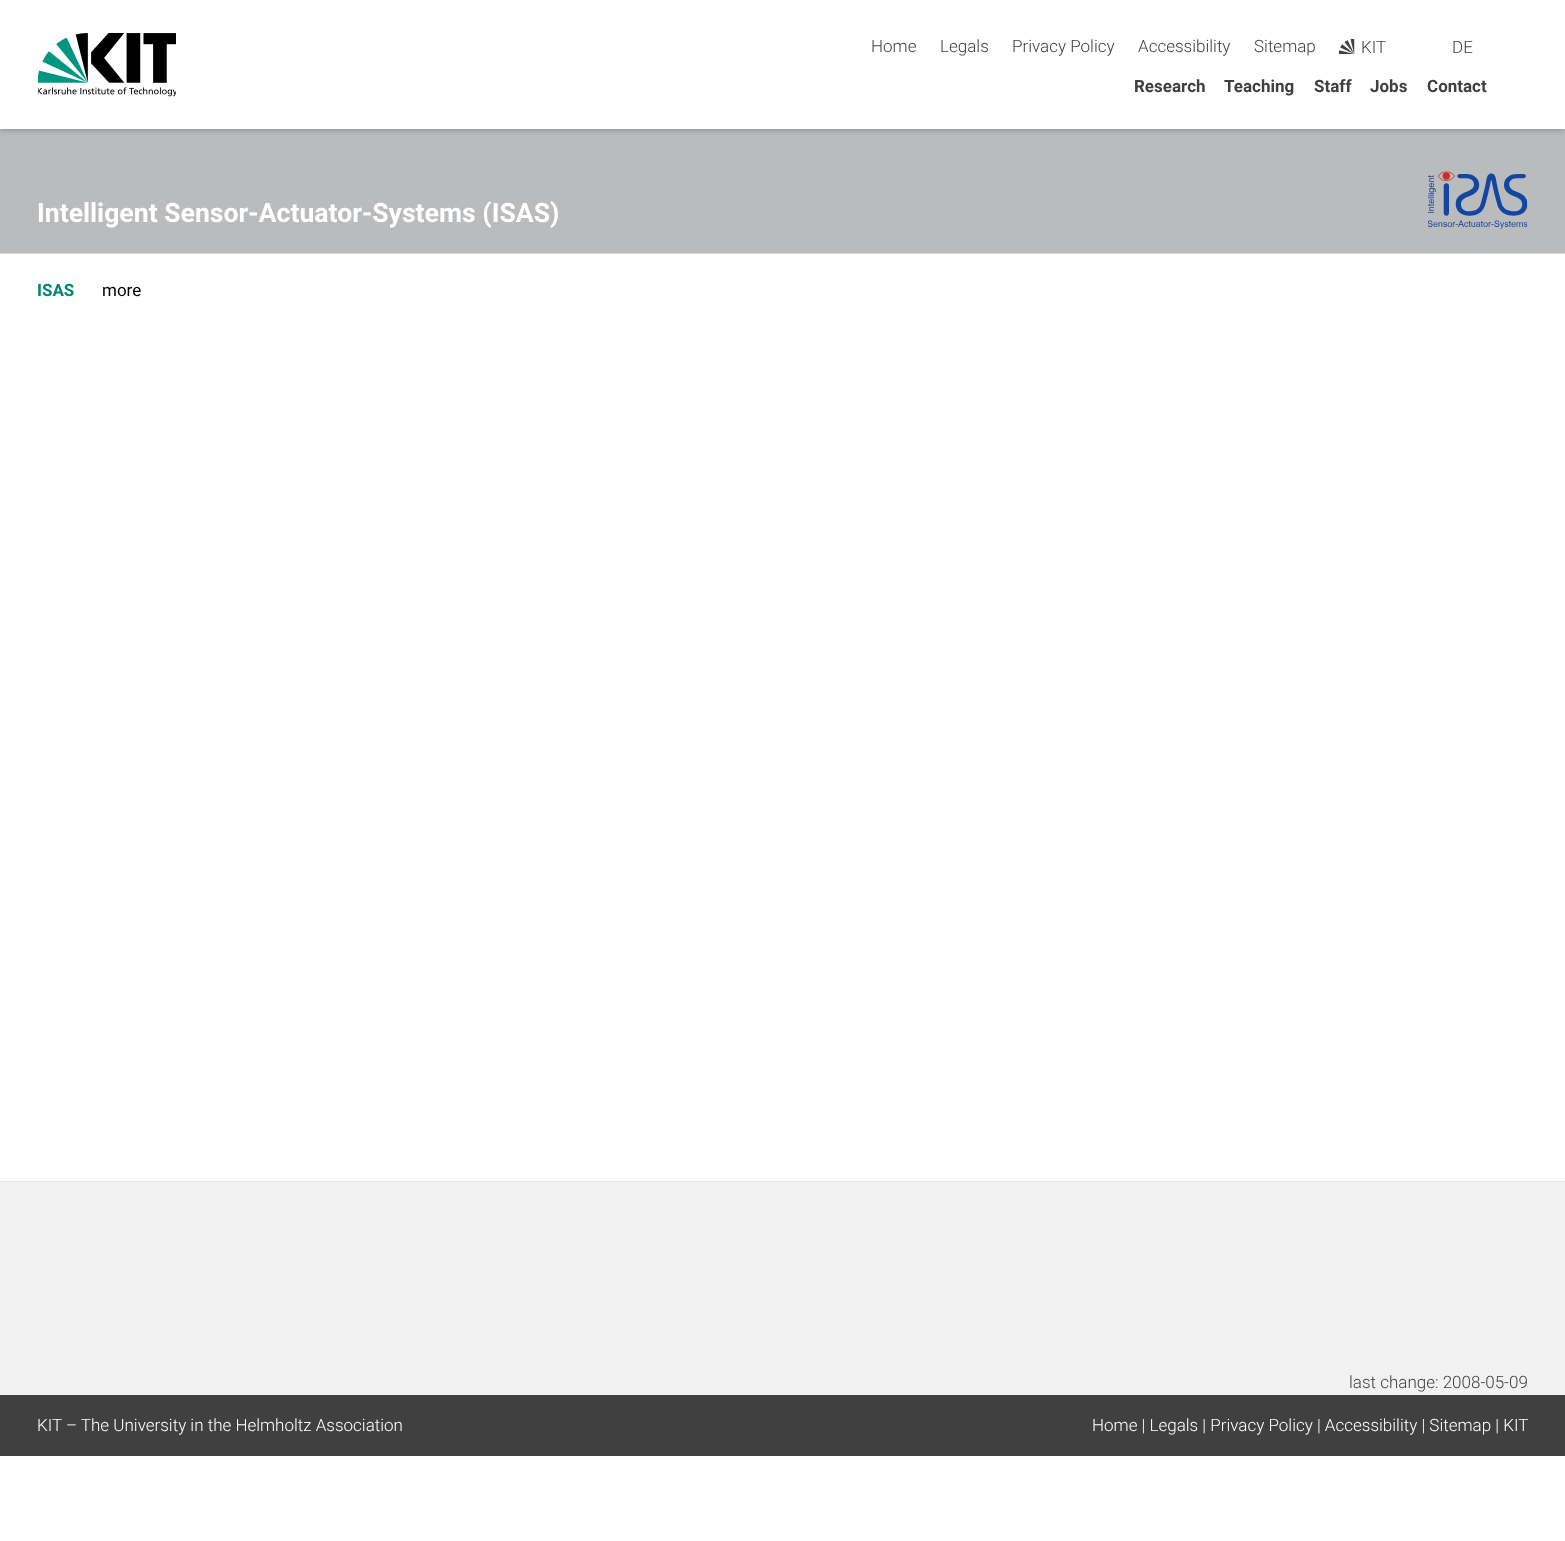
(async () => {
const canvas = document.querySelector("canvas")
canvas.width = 1565
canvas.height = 1541
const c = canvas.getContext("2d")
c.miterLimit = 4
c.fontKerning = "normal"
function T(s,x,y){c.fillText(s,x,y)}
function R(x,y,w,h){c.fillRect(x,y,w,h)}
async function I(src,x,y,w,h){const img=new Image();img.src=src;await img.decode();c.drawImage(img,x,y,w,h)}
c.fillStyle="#fff"
R(0,0,1565,1541)
await I("3.png",0,129,1565,125)
c.fillStyle="#40404080"
c.filter="blur(3px)"
c.beginPath()
c.rect(0,0,1565,129)
c.fill()
c.filter="none"
c.fillStyle="#fff"
R(0,0,1565,129)
await I("1.png",38,33,138,64)
c.font="300 17px Roboto"
c.fillStyle="#404040"
T("Home",871,52)
T("Legals",940,52)
T("Privacy Policy",1012,52)
T("Accessibility",1138,52)
T("Sitemap",1254,52)
await I("2.png",1339,39,16,15)
T("KIT",1361,53)
T("DE",1452,53)
c.font="bold 17px Roboto"
T("Research",1134,92)
T("Teaching",1224,92)
T("Staff",1314,92)
T("Jobs",1370,92)
T("Contact",1427,92)
c.font="bold 26.6px Roboto"
c.fillStyle="#fff"
T("Intelligent Sensor-Actuator-Systems (ISAS)",37,222)
await I("4.png",1428,171,100,58)
c.font="bold 17px Roboto"
c.fillStyle="#00876c"
T("ISAS",37,296)
c.font="17px Roboto"
c.fillStyle="#000"
T("more",102,296)
c.fillStyle="#f2f2f2"
R(0,1182,1565,213)
c.fillStyle="#e6e6e6"
R(0,1181,1565,1)
c.font="300 17px Roboto"
c.fillStyle="#404040"
T("last change: 2008-05-09",1349,1388)
R(0,1395,1565,61)
c.fillStyle="#fff"
T("KIT – The University in the Helmholtz Association",37,1431)
T("Home | Legals | Privacy Policy | Accessibility | Sitemap | KIT",1092,1431)
})()
